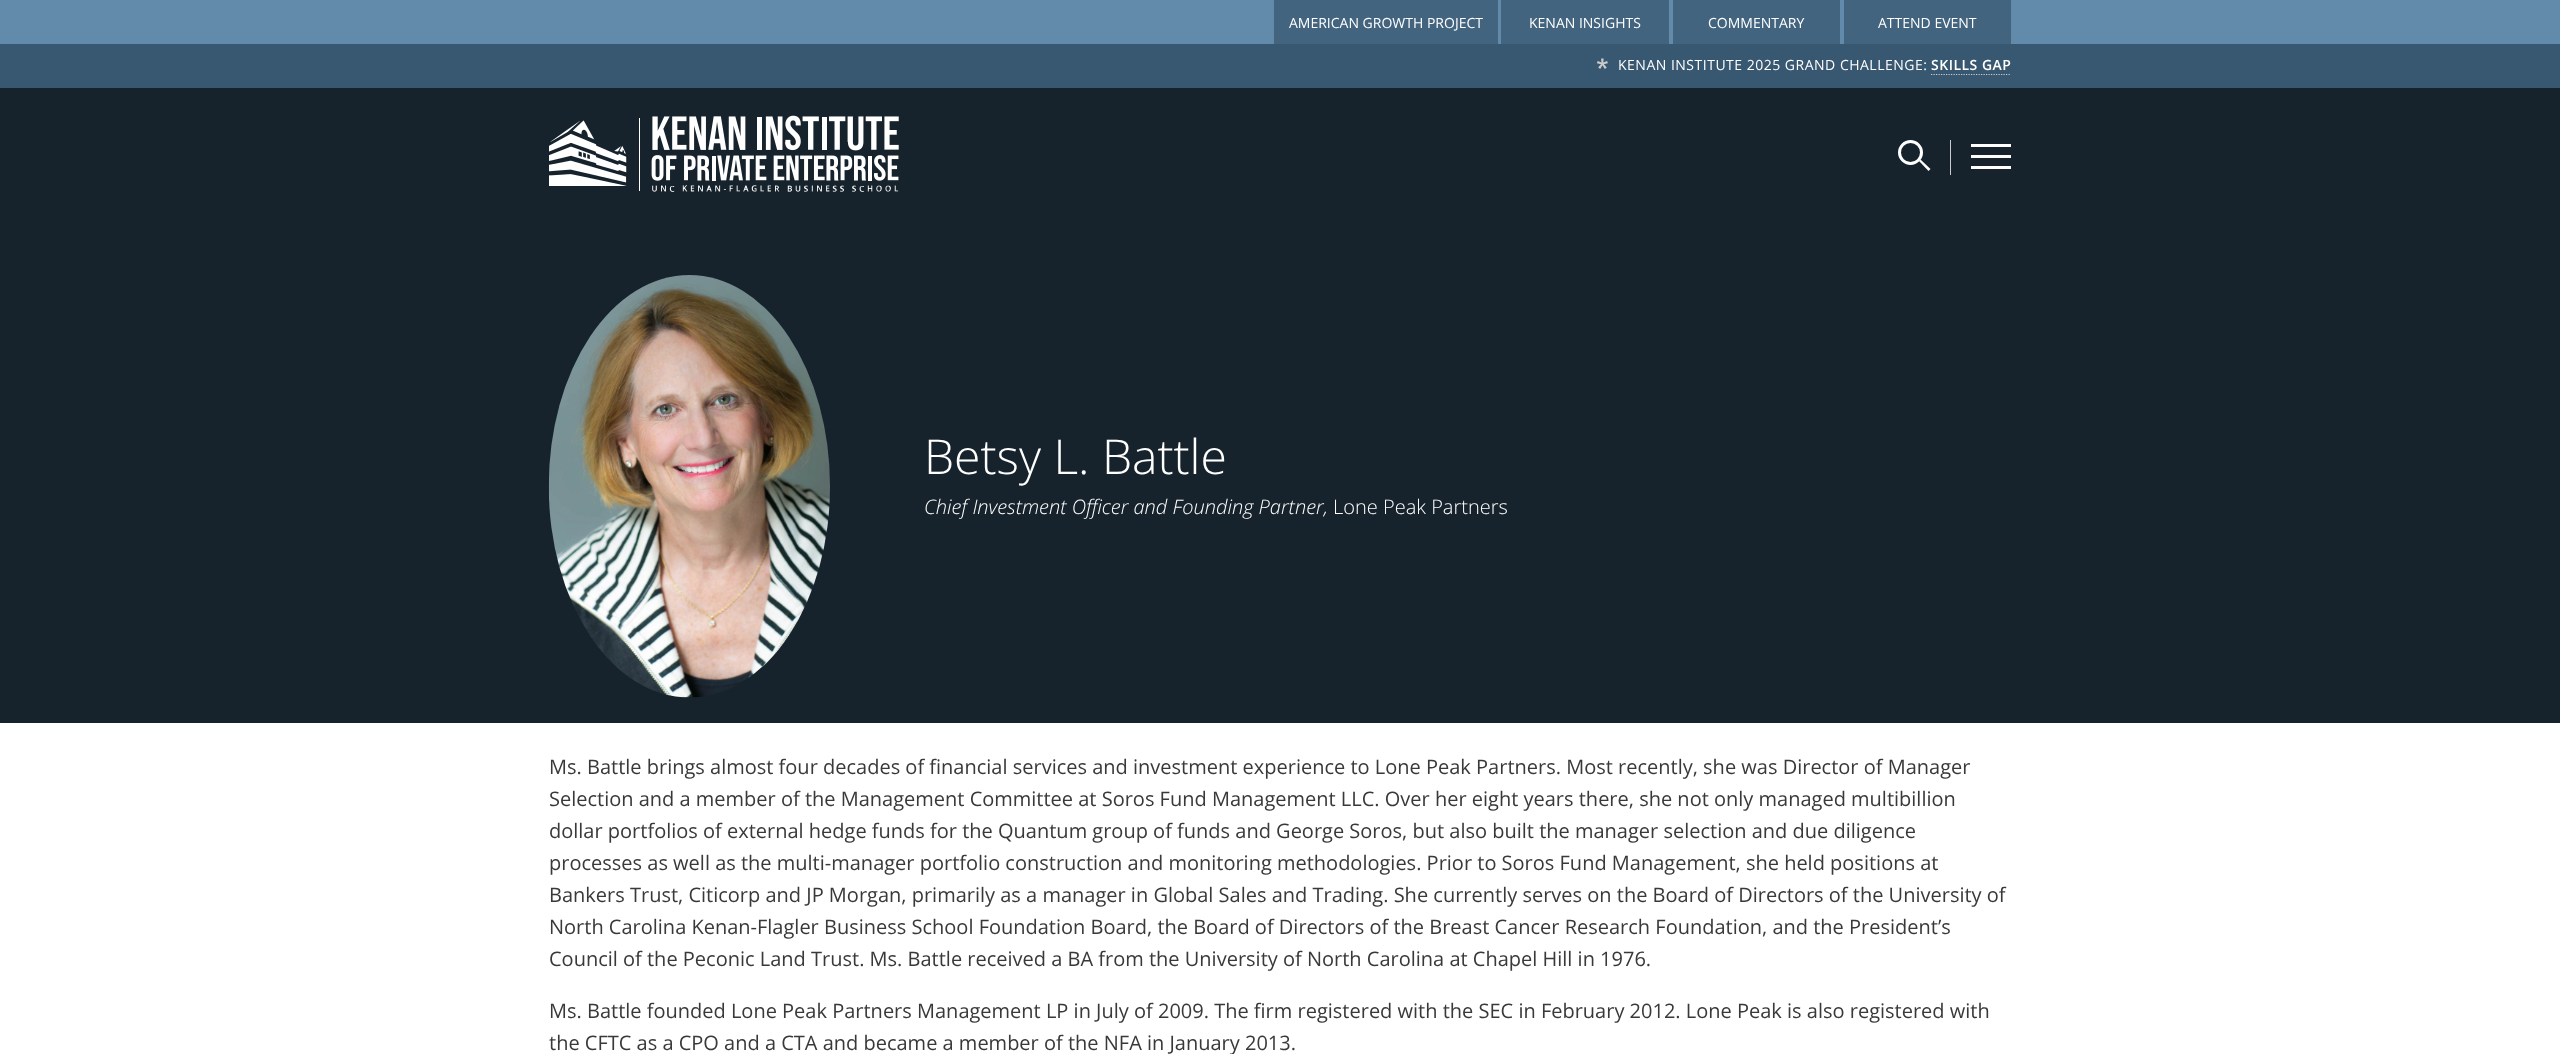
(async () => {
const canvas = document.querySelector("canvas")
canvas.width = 2560
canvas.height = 1054
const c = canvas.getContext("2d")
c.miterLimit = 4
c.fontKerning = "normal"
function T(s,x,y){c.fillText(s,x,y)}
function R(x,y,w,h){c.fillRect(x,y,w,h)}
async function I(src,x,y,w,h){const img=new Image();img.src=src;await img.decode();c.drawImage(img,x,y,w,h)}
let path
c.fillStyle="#16232c"
R(0,0,2560,1054)
c.fillStyle="#618aab"
R(0,0,2560,44)
c.fillStyle="#42647f"
R(1274,0,224,44)
c.font="14px Open Sans"
c.fillStyle="#fff"
T("AMERICAN GROWTH PROJECT",1289,28)
c.fillStyle="#42647f"
R(1501,0,168,44)
c.fillStyle="#fff"
T("KENAN INSIGHTS",1529,28)
c.fillStyle="#42647f"
R(1673,0,167,44)
c.fillStyle="#fff"
T("COMMENTARY",1708,28)
c.fillStyle="#42647f"
R(1844,0,167,44)
c.fillStyle="#fff"
T("ATTEND EVENT",1878,28)
c.fillStyle="#385770"
R(0,44,2560,44)
await I("1.png",1597,58,11,11)
c.letterSpacing="0.5px"
c.fillStyle="#fff"
T("KENAN INSTITUTE 2025 GRAND CHALLENGE:",1618,70)
c.font="600 14px Open Sans"
T("SKILLS GAP",1931,70)
path = new Path2D("M1931 74.5h80")
c.strokeStyle="#ccc"
c.lineWidth=1.2
c.setLineDash([1.25,1.25])
c.stroke(path)
await I("2.png",549,115,350,77)
c.beginPath()
c.arc(1910.5,152.5,11,0,7)
c.strokeStyle="#fff"
c.lineWidth=3
c.setLineDash([])
c.stroke()
path = new Path2D("M1919 161l1.5-1.5l10 9.5l-2 2z")
c.fill(path)
c.fillStyle="#ccc"
R(1950,140,1,35)
c.fillStyle="#fff"
R(1971,155,40,3)
R(1971,144,40,3)
R(1971,166,40,3)
await I("3.png",548,275,282,423)
c.letterSpacing="0px"
c.font="300 48px Open Sans"
T("Betsy L. Battle",924,474)
c.font="italic 300 20px Open Sans"
T("Chief Investment Officer and Founding Partner,",924,514)
c.font="300 20px Open Sans"
T("Lone Peak Partners",1333,514)
R(0,723,2560,331)
c.font="20px Open Sans"
c.fillStyle="#393939"
T("Ms. Battle brings almost four decades of financial services and investment experience to Lone Peak Partners. Most recently, she was Director of Manager",549,774)
T("Selection and a member of the Management Committee at Soros Fund Management LLC. Over her eight years there, she not only managed multibillion",549,806)
T("dollar portfolios of external hedge funds for the Quantum group of funds and George Soros, but also built the manager selection and due diligence",549,838)
T("processes as well as the multi-manager portfolio construction and monitoring methodologies. Prior to Soros Fund Management, she held positions at",549,870)
T("Bankers Trust, Citicorp and JP Morgan, primarily as a manager in Global Sales and Trading. She currently serves on the Board of Directors of the University of",549,902)
T("North Carolina Kenan-Flagler Business School Foundation Board, the Board of Directors of the Breast Cancer Research Foundation, and the President’s",549,934)
T("Council of the Peconic Land Trust. Ms. Battle received a BA from the University of North Carolina at Chapel Hill in 1976.",549,966)
T("Ms. Battle founded Lone Peak Partners Management LP in July of 2009. The firm registered with the SEC in February 2012. Lone Peak is also registered with",549,1018)
T("the CFTC as a CPO and a CTA and became a member of the NFA in January 2013.",549,1050)
})()
